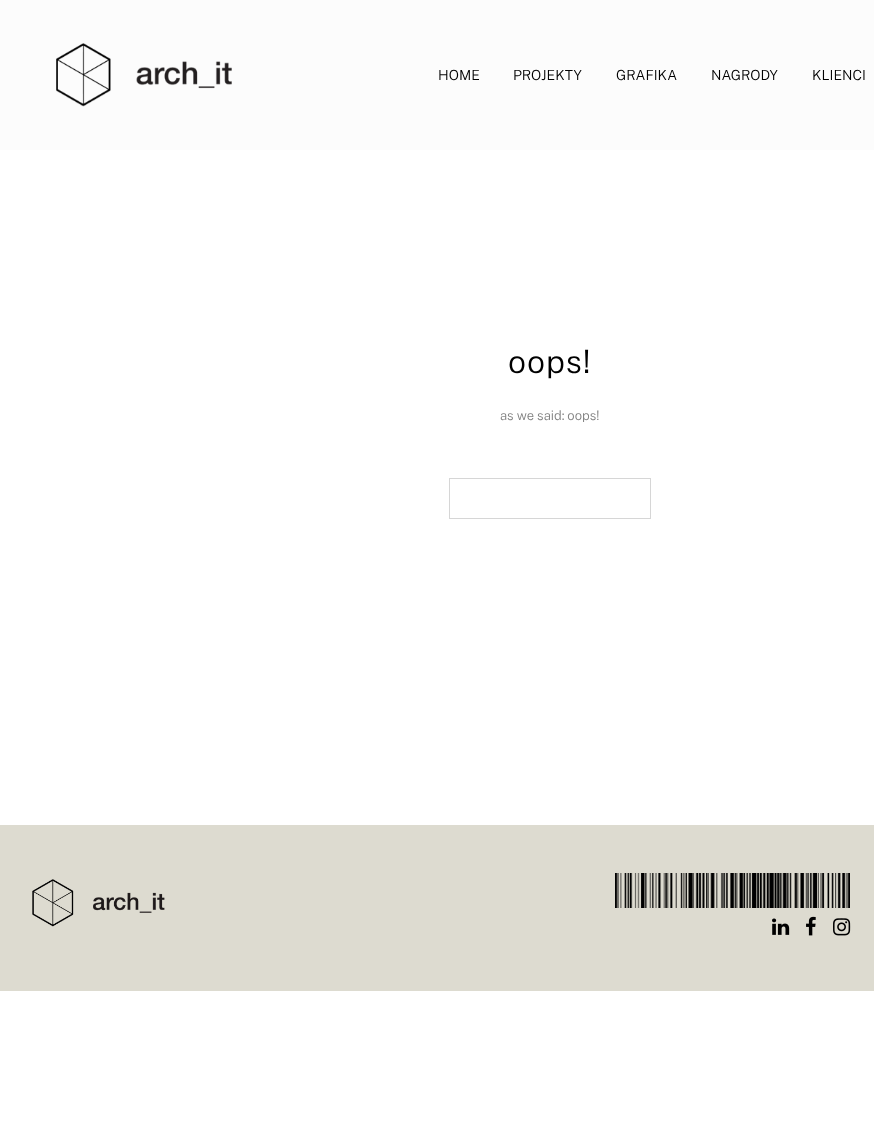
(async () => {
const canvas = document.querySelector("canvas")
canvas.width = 874
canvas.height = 1141
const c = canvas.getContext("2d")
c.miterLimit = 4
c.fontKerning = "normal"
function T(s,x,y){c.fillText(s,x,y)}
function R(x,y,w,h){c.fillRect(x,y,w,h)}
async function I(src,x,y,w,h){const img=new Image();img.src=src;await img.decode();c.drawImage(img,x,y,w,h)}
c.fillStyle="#fff"
R(0,0,874,1141)
c.fillStyle="#fcfcfc"
R(0,0,874,150)
await I("1.png",56,43,176,64)
c.font="300 14px Public Sans"
c.fillStyle="#000"
T("HOME",438,80)
T("PROJEKTY",513,80)
T("GRAFIKA",616,80)
T("NAGRODY",711,80)
T("KLIENCI",812,80)
c.letterSpacing="1px"
c.font="300 32px Public Sans"
T("oops!",508,373)
c.letterSpacing="0px"
c.font="300 13px Public Sans"
c.fillStyle="#818181"
T("as we said: oops!",500,420)
c.strokeStyle="#d6d6d6"
c.strokeRect(449.5,478.5,201,40)
c.fillStyle="#dddbd0"
R(0,825,874,166)
await I("2.png",32,879,133,48)
await I("3.png",615,873,235,35)
await I("4.png",772,918,18,17)
await I("5.png",806,916,10,20)
await I("6.png",833,918,18,18)
})()
